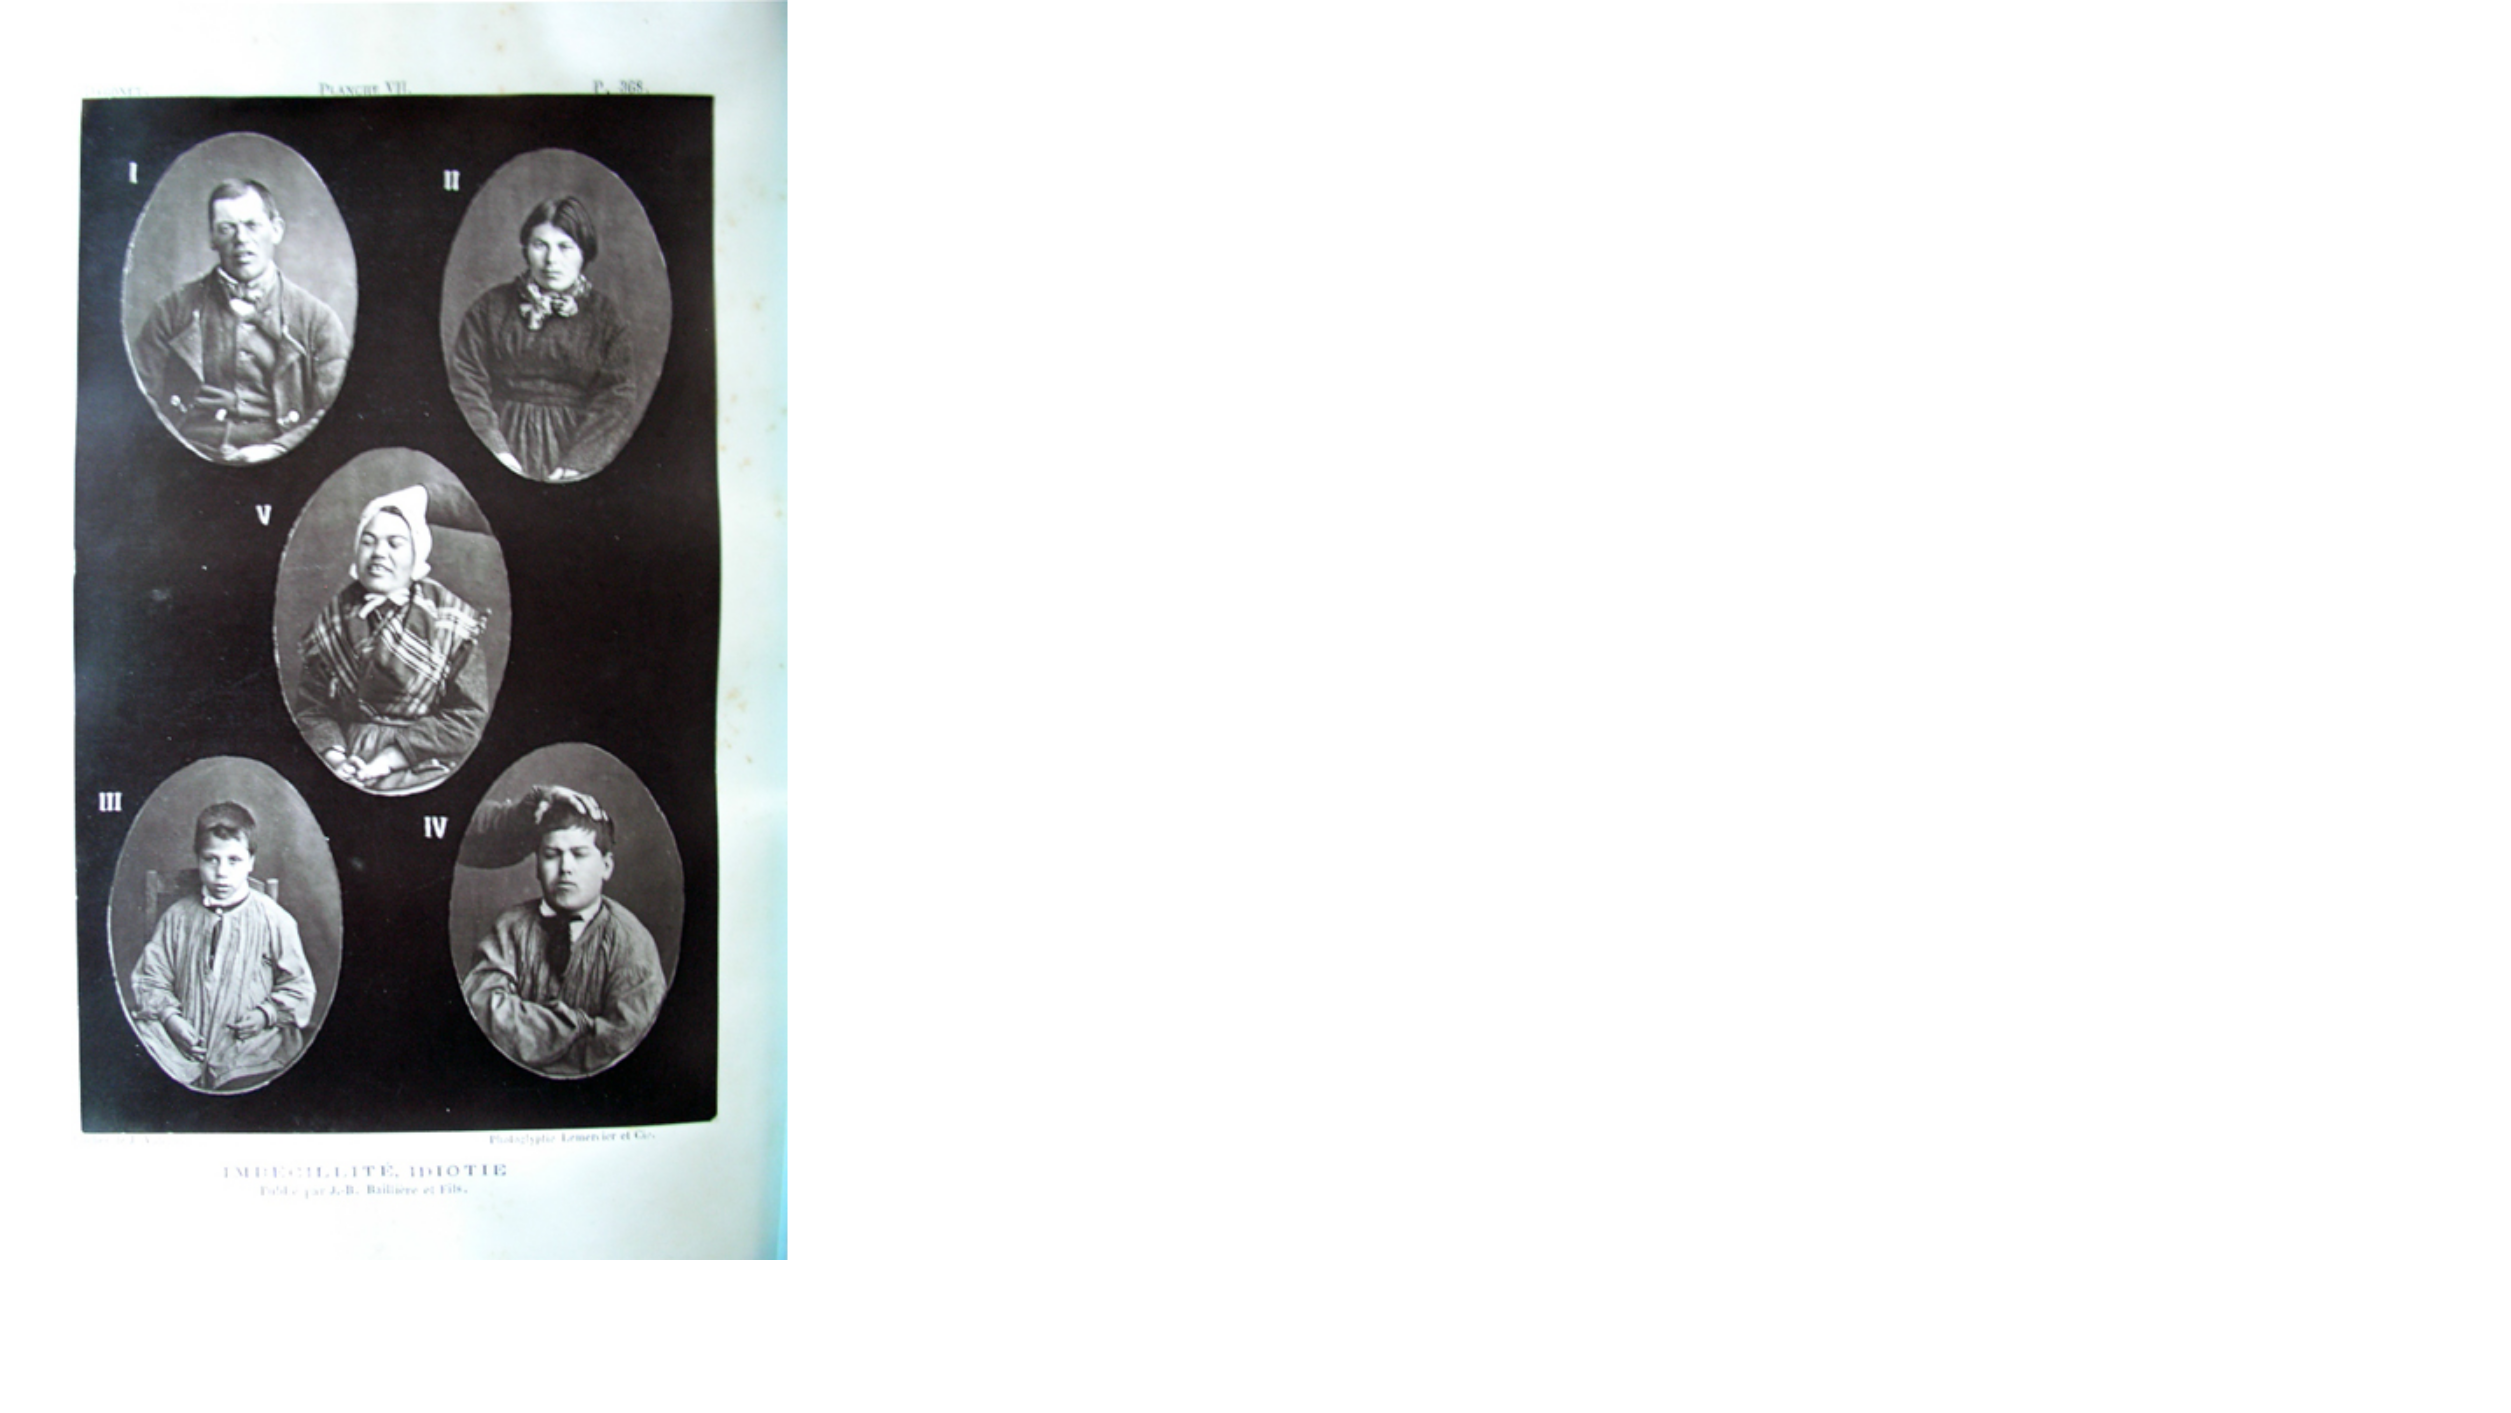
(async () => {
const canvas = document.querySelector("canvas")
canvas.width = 2511
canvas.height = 1413
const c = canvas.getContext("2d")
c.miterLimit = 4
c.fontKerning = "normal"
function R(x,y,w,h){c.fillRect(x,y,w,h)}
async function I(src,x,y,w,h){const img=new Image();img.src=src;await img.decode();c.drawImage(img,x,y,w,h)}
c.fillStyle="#fff"
R(0,0,2511,1413)
await I("1.png",71,0,717,1260)
})()
